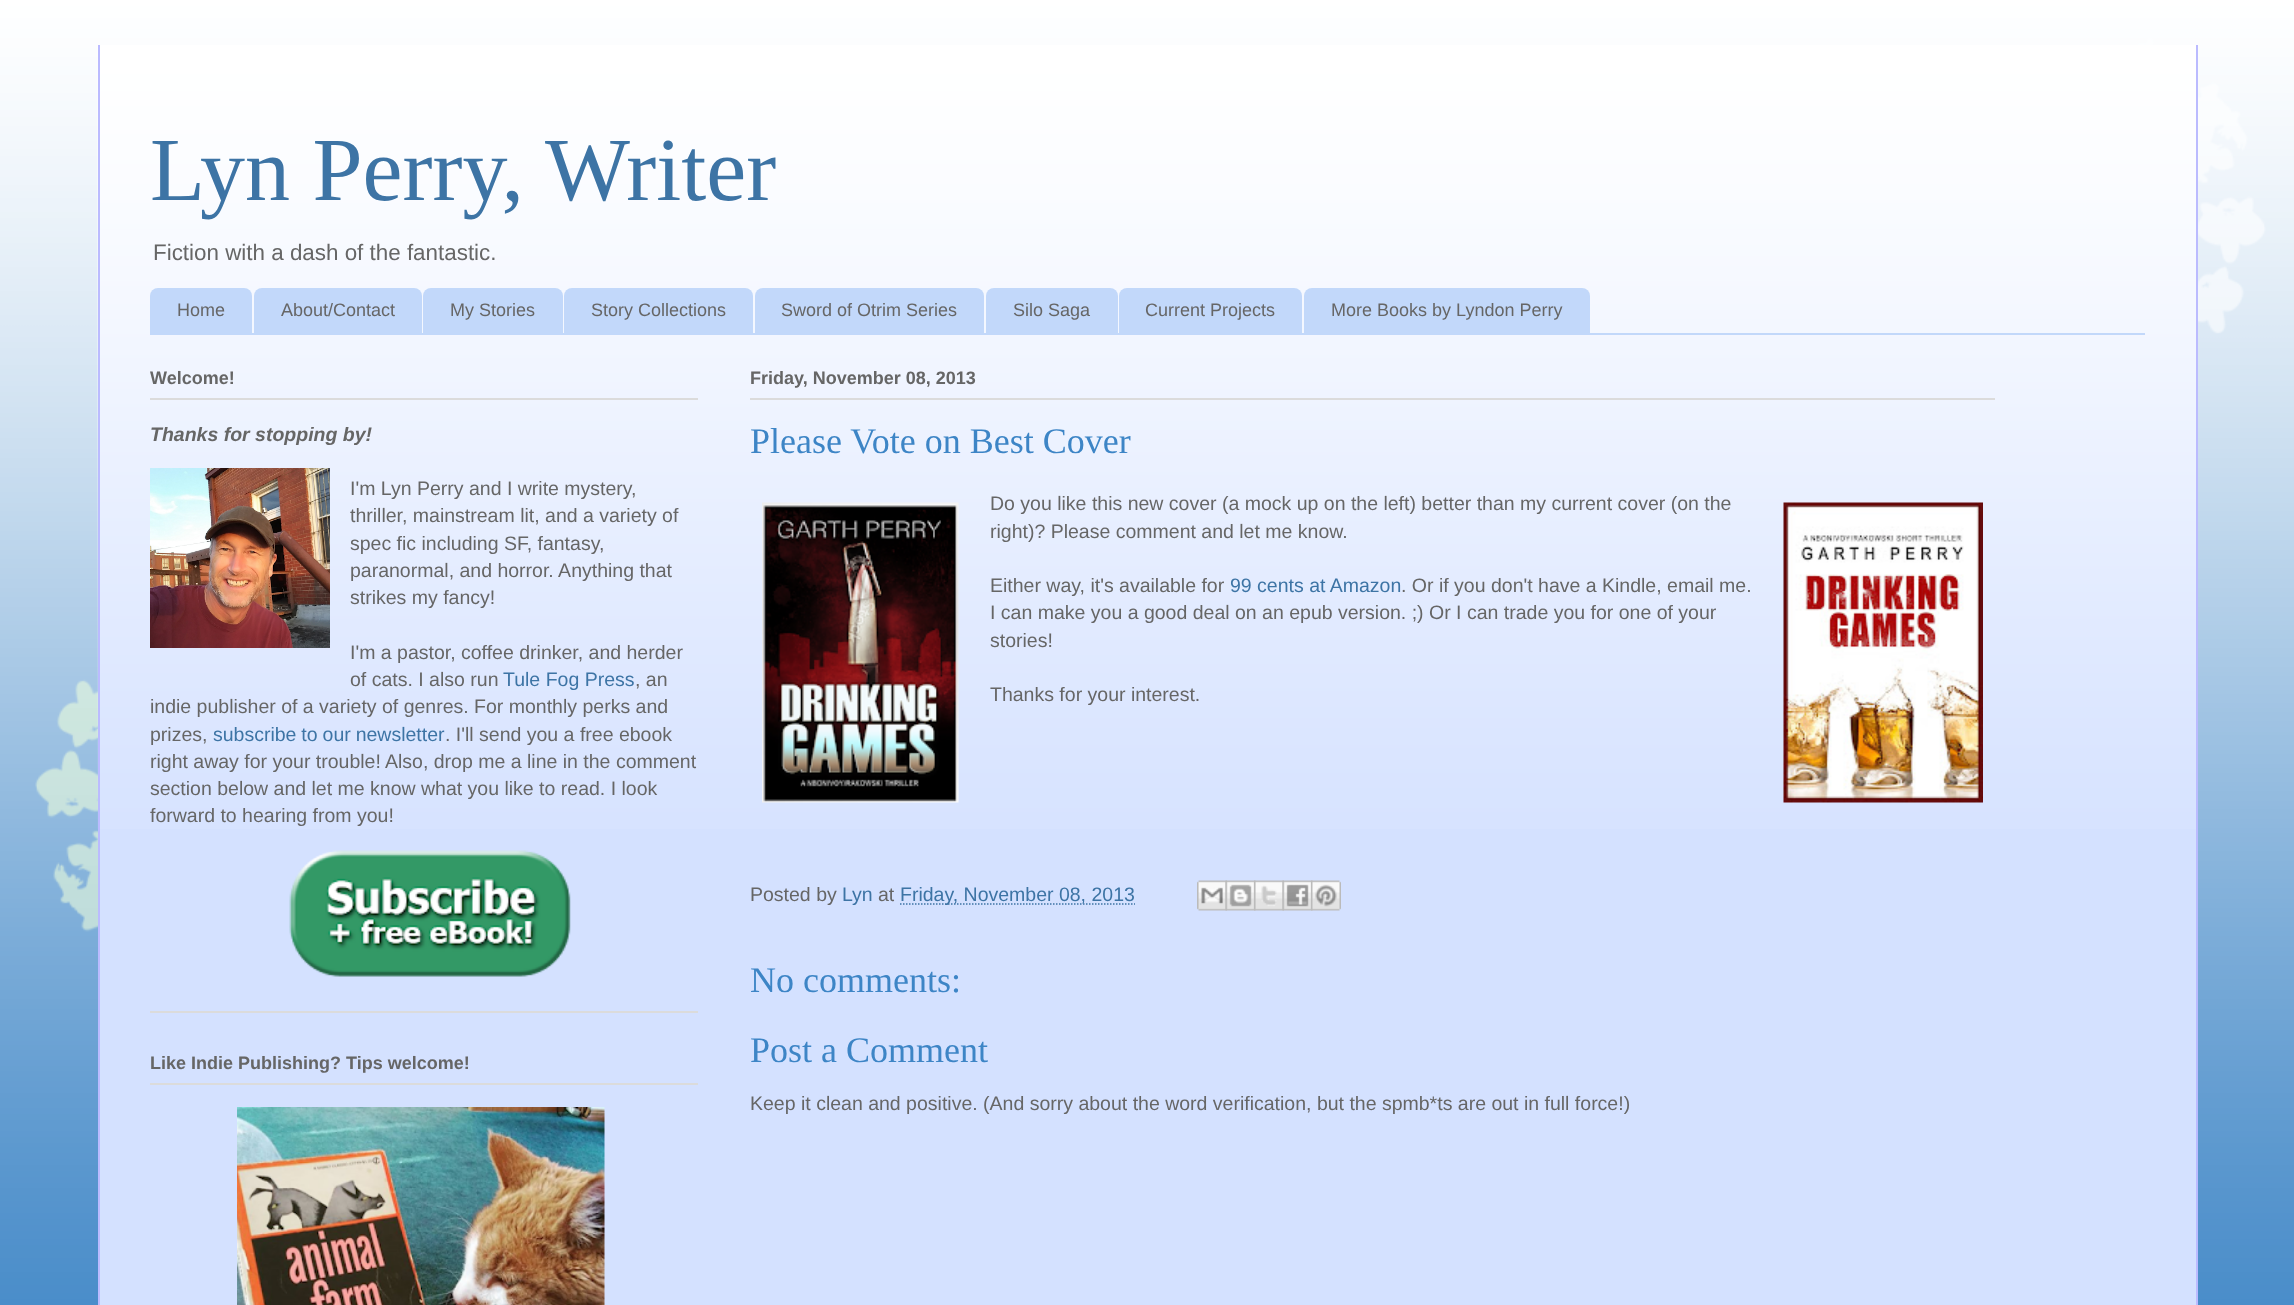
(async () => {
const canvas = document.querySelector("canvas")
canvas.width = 2294
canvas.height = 1305
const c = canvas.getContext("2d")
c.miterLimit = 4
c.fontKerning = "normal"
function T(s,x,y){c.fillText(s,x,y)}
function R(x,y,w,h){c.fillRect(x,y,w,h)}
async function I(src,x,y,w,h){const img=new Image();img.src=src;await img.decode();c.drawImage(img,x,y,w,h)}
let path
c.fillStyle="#3d85c6"
R(0,0,2294,1305)
await I("1.png",0,0,2294,1305)
c.fillStyle="#d4e1ff"
R(100,55,2096,1250)
await I("2.png",97,45,2099,784)
c.fillStyle="#bbf"
R(2196,45,2,1260)
R(98,45,2,1260)
c.font="90px Liberation Serif"
c.fillStyle="#3d74a5"
T("Lyn Perry, Writer",150,200)
c.font="22.4px Liberation Sans"
c.fillStyle="#666"
T("Fiction with a dash of the fantastic.",153,260)
c.fillStyle="#c2d8fa"
R(150,333,1995,2)
c.beginPath()
c.roundRect(150,288,102,45,[8,8,0,0])
c.fill()
c.font="18px Liberation Sans"
c.fillStyle="#666"
T("Home",177,316)
c.fillStyle="#c2d8fa"
c.beginPath()
c.roundRect(254,288,168,45,[8,8,0,0])
c.fill()
c.fillStyle="#666"
T("About/Contact",281,316)
c.fillStyle="#c2d8fa"
c.beginPath()
c.roundRect(423,288,140,45,[8,8,0,0])
c.fill()
c.fillStyle="#666"
T("My Stories",450,316)
c.fillStyle="#c2d8fa"
c.beginPath()
c.roundRect(564,288,189,45,[8,8,0,0])
c.fill()
c.fillStyle="#666"
T("Story Collections",591,316)
c.fillStyle="#c2d8fa"
c.beginPath()
c.roundRect(755,288,229,45,[8,8,0,0])
c.fill()
c.fillStyle="#666"
T("Sword of Otrim Series",781,316)
c.fillStyle="#c2d8fa"
c.beginPath()
c.roundRect(986,288,132,45,[8,8,0,0])
c.fill()
c.fillStyle="#666"
T("Silo Saga",1013,316)
c.fillStyle="#c2d8fa"
c.beginPath()
c.roundRect(1119,288,183,45,[8,8,0,0])
c.fill()
c.fillStyle="#666"
T("Current Projects",1145,316)
c.fillStyle="#c2d8fa"
c.beginPath()
c.roundRect(1304,288,286,45,[8,8,0,0])
c.fill()
c.fillStyle="#666"
T("More Books by Lyndon Perry",1331,316)
c.fillStyle="#dbdbdb"
R(150,1011,548,2)
R(150,398,548,2)
c.font="bold 18px Liberation Sans"
c.fillStyle="#666"
T("Welcome!",150,384)
c.font="italic bold 19.5px Liberation Sans"
T("Thanks for stopping by!",150,441)
await I("3.png",150,468,180,180)
c.font="19.5px Liberation Sans"
T("I'm Lyn Perry and I write mystery,",350,495)
T("thriller, mainstream lit, and a variety of",350,522)
T("spec fic including SF, fantasy,",350,550)
T("paranormal, and horror. Anything that",350,577)
T("strikes my fancy!",350,604)
T("I'm a pastor, coffee drinker, and herder",350,659)
T("of cats. I also run",350,686)
c.fillStyle="#3d74a5"
T("Tule Fog Press",503,686)
c.fillStyle="#666"
T(", an",635,686)
T("indie publisher of a variety of genres. For monthly perks and",150,713)
T("prizes,",150,741)
c.wordSpacing="-0.5px"
c.fillStyle="#3d74a5"
T("subscribe to our newsletter",213,741)
c.wordSpacing="0px"
c.fillStyle="#666"
T(". I'll send you a free ebook",445,741)
T("right away for your trouble!",150,768)
T("Also, drop me a line in the comment",385,768)
T("section below and let me know what you like to read. I look",150,795)
T("forward to hearing from you!",150,822)
await I("4.png",289,850,282,127)
c.fillStyle="#dbdbdb"
R(150,1083,548,2)
c.font="bold 18px Liberation Sans"
c.fillStyle="#666"
T("Like Indie Publishing? Tips welcome!",150,1069)
await I("5.png",237,1107,368,198)
c.fillStyle="#dbdbdb"
R(750,398,1245,2)
c.fillStyle="#666"
T("Friday, November 08, 2013",750,384)
c.font="36px Liberation Serif"
c.fillStyle="#3d85c6"
T("Please Vote on Best Cover",750,453)
await I("6.png",762,502,197,301)
c.font="19.5px Liberation Sans"
c.fillStyle="#666"
T("Do you like this new cover (a mock up on the left) better than my current cover (on the",990,510)
await I("7.png",1783,502,200,301)
T("right)? Please comment and let me know.",990,538)
T("Either way, it's available for",990,592)
c.fillStyle="#3d74a5"
T("99 cents at Amazon",1230,592)
c.fillStyle="#666"
T(". Or if you don't have a Kindle, email me.",1401,592)
T("I can make you a good deal on an epub version. ;) Or I can trade you for one of your",990,619)
T("stories!",990,647)
T("Thanks for your interest.",990,701)
T("Posted by",750,901)
c.fillStyle="#3d74a5"
T("Lyn",842,901)
c.fillStyle="#666"
T("at",878,901)
path = new Path2D("M900 904h235")
c.strokeStyle="#3d74a5"
c.lineWidth=1.5
c.setLineDash([1.5,1.5])
c.stroke(path)
c.fillStyle="#3d74a5"
T("Friday, November 08, 2013",900,901)
await I("8.png",1197,880,30,31)
await I("9.png",1225,880,31,31)
await I("10.png",1254,880,30,31)
await I("11.png",1282,880,31,31)
await I("12.png",1311,880,30,31)
c.font="36px Liberation Serif"
c.fillStyle="#3d85c6"
T("No comments:",750,992)
T("Post a Comment",750,1062)
c.font="19.5px Liberation Sans"
c.fillStyle="#666"
T("Keep it clean and positive. (And sorry about the word verification, but the spmb*ts are out in full force!)",750,1110)
})()
